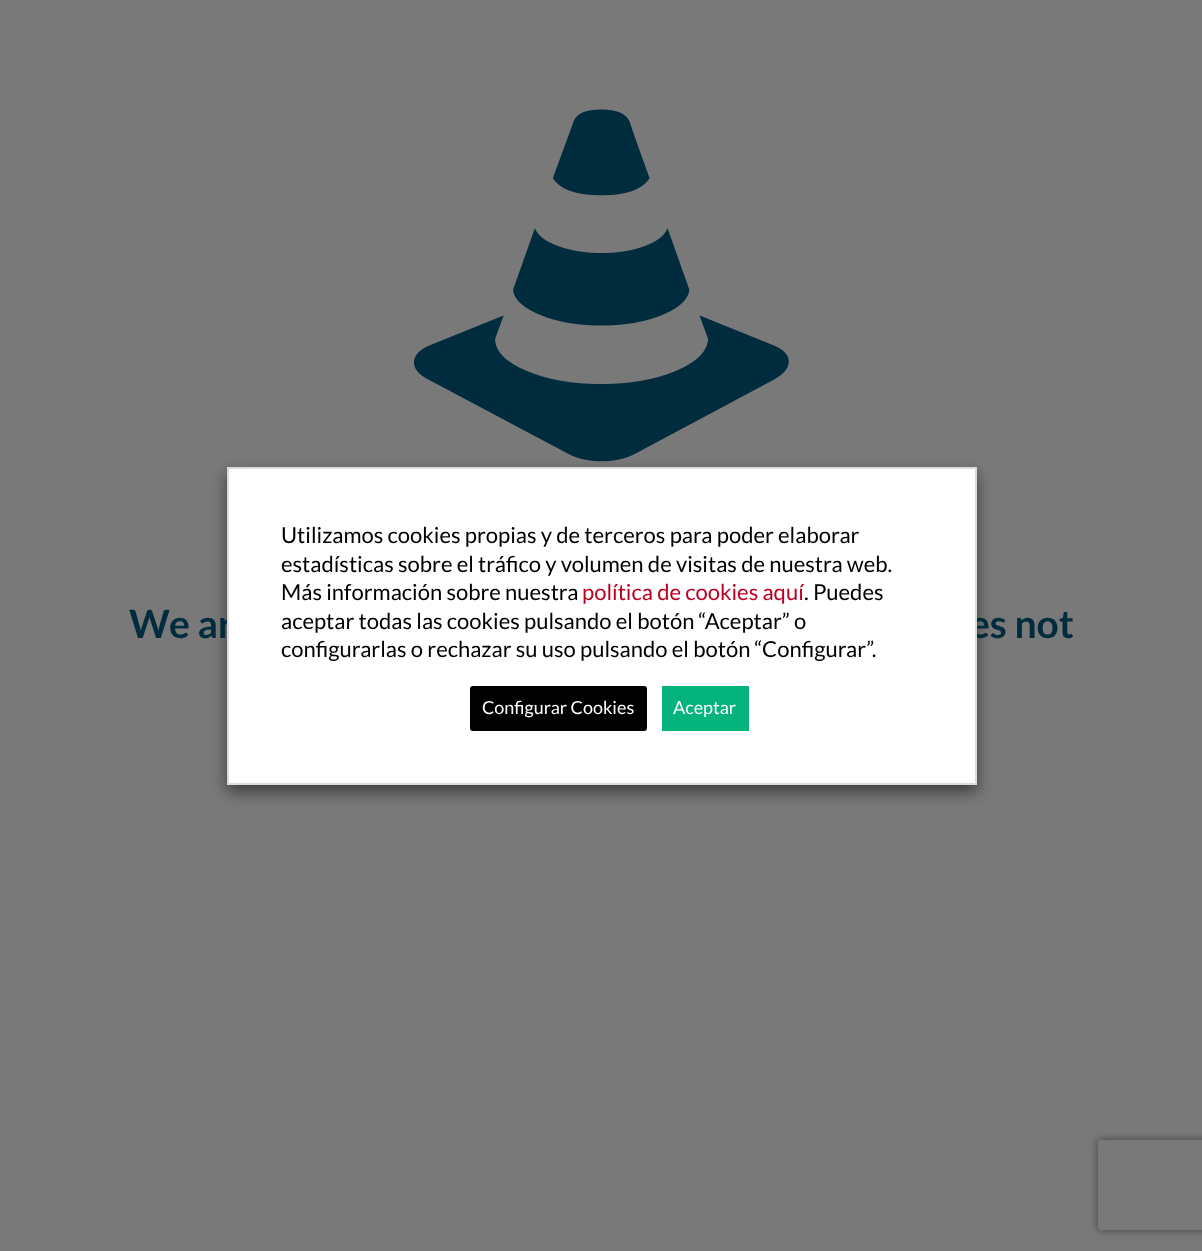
(async () => {
const canvas = document.querySelector("canvas")
canvas.width = 1202
canvas.height = 1251
const c = canvas.getContext("2d")
c.miterLimit = 4
c.fontKerning = "normal"
function T(s,x,y){c.fillText(s,x,y)}
function R(x,y,w,h){c.fillRect(x,y,w,h)}
function Q(x,y,w,h,r){c.beginPath();c.roundRect(x,y,w,h,r);c.fill()}
async function I(src,x,y,w,h){const img=new Image();img.src=src;await img.decode();c.drawImage(img,x,y,w,h)}
let path
c.fillStyle="#797979"
R(0,0,1202,1251)
await I("1.png",414,109,375,353)
c.fillStyle="#00000080"
c.filter="blur(7.5px)"
c.beginPath()
c.rect(227,474,750,318)
c.fill()
c.filter="none"
c.font="bold 39px Lato"
c.fillStyle="#002c3e"
T("We ar",129,638)
T("es not",969,638)
c.fillStyle="#fff"
c.beginPath()
c.rect(228,468,748,316)
c.fill()
c.strokeStyle="#dbdbdb"
c.lineWidth=2
c.stroke()
c.font="22px Lato"
c.fillStyle="#000"
T("Utilizamos cookies propias y de terceros para poder elaborar",281,543)
T("estadísticas sobre el tráfico y volumen de visitas de nuestra web.",281,572)
T("Más información sobre nuestra",281,600)
c.fillStyle="#bb0021"
T("política de cookies aquí",582,600)
c.fillStyle="#000"
T(". Puedes",804,600)
T("aceptar todas las cookies pulsando el botón “Aceptar” o",281,629)
T("configurarlas o rechazar su uso pulsando el botón “Configurar”.",281,657)
Q(470,686,177,45,3)
c.font="18px Lato"
c.fillStyle="#fff"
T("Configurar Cookies",482,714)
c.fillStyle="#04b47c"
R(662,686,87,45)
c.fillStyle="#fff"
T("Aceptar",673,714)
c.save()
path = new Path2D("M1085 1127h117v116h-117zm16 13h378c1.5 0 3 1.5 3 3v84c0 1.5-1.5 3-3 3h-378c-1.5 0-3-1.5-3-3v-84c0-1.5 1.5-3 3-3z")
c.clip(path,"evenodd")
c.fillStyle="#404040"
c.filter="blur(4px)"
c.beginPath()
c.roundRect(1098,1140,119,90,3)
c.fill()
c.filter="none"
c.restore()
})()
